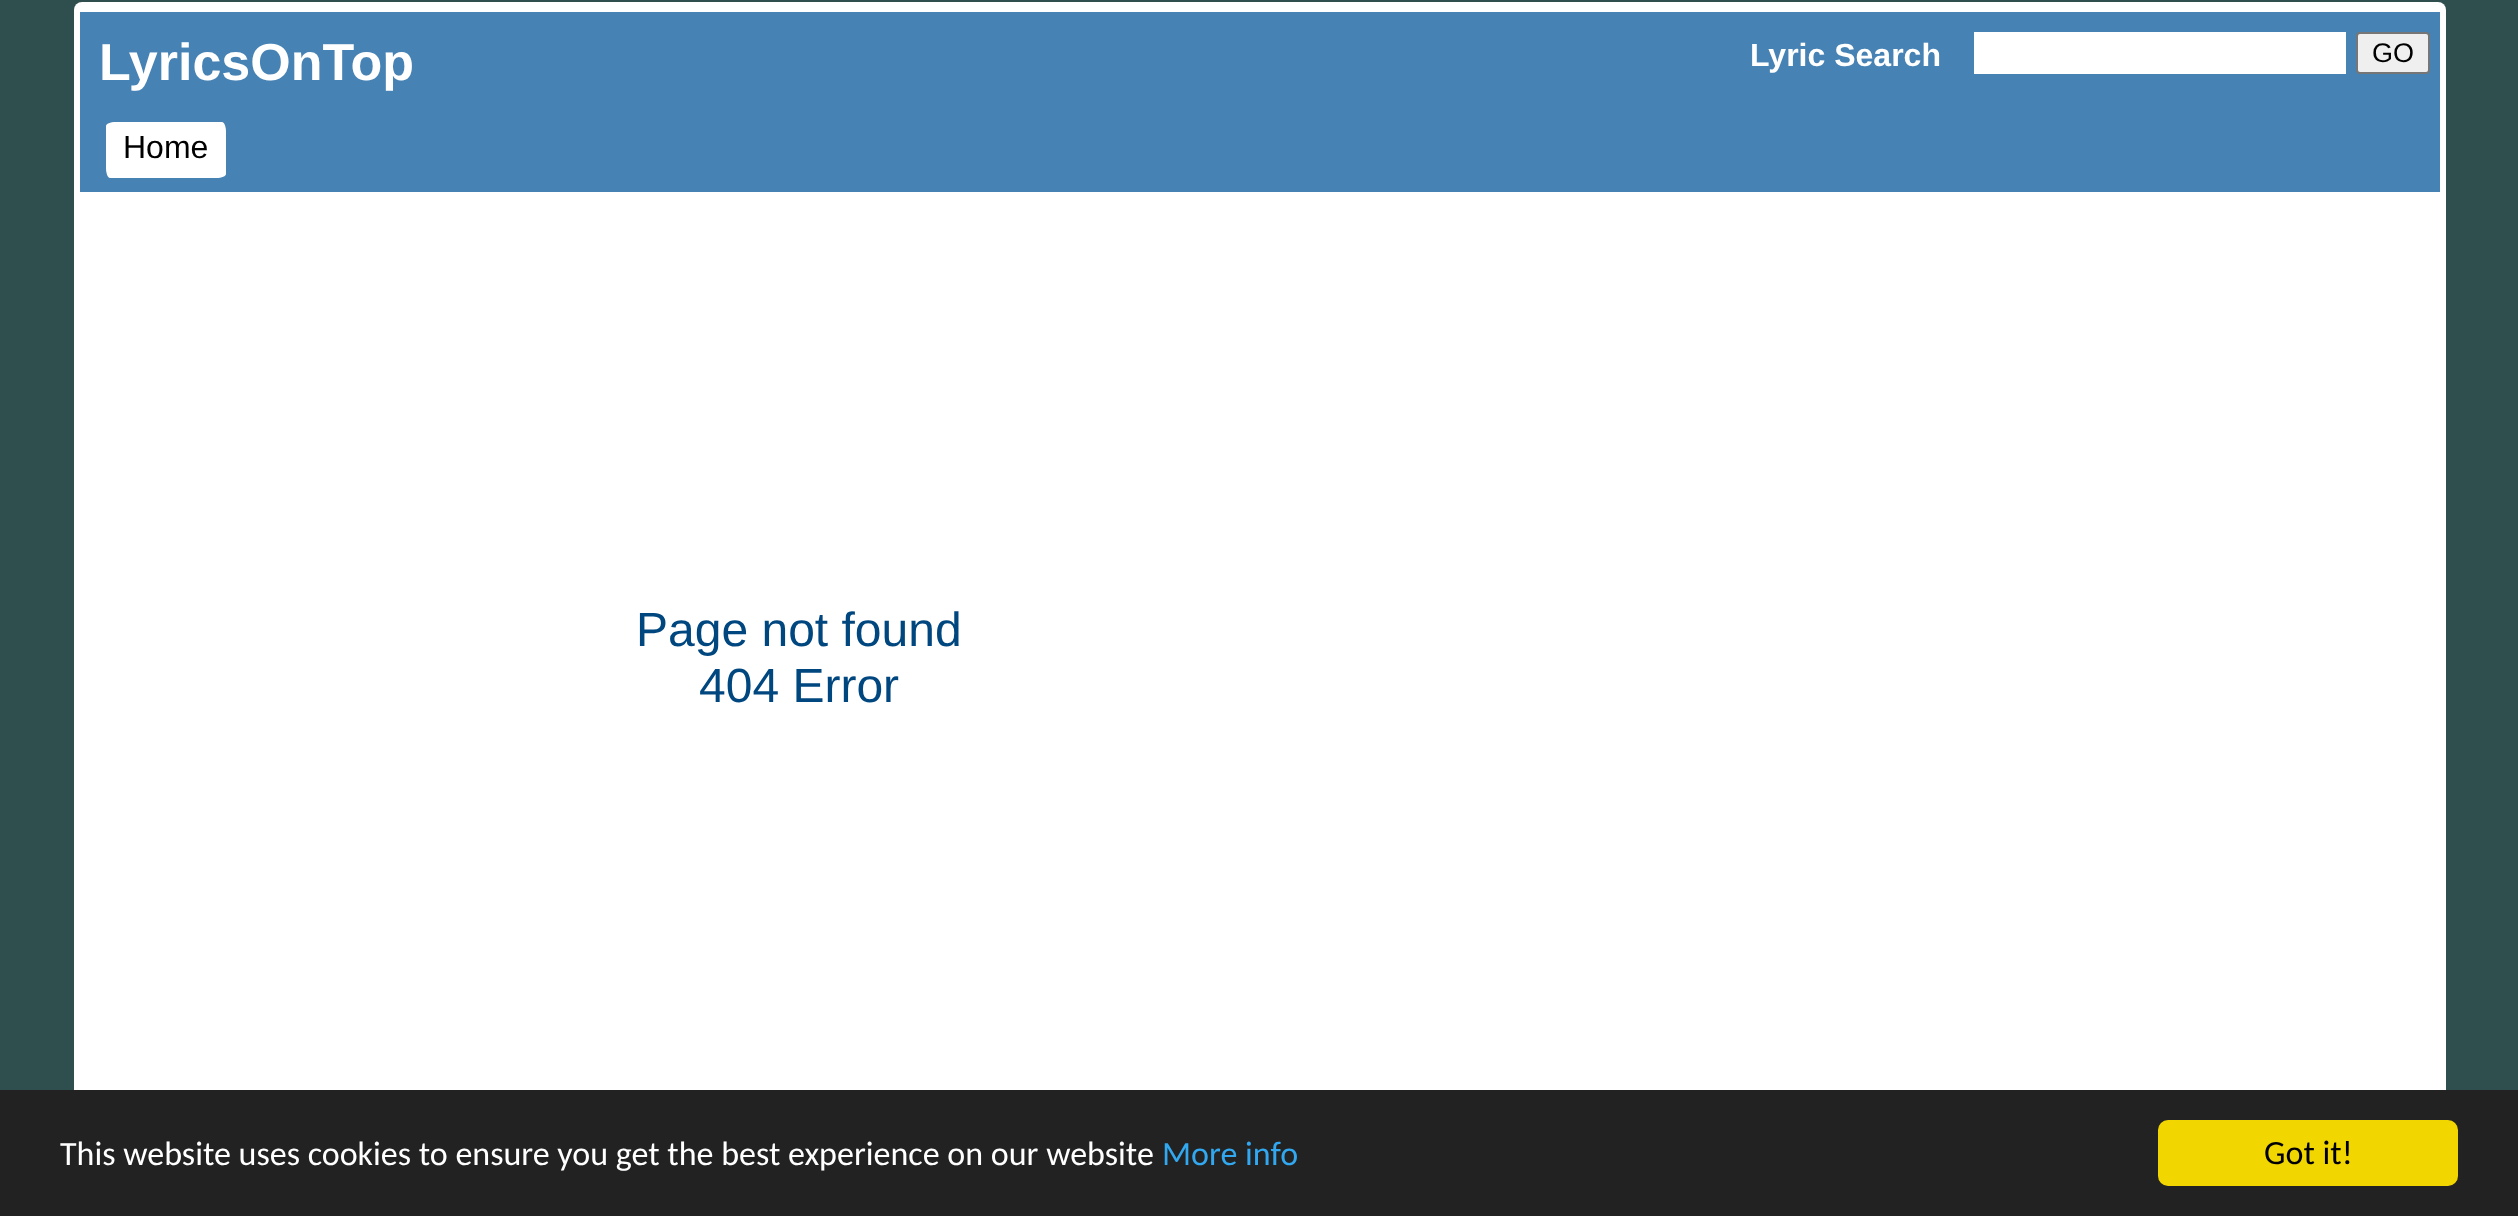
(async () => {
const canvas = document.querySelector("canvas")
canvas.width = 2518
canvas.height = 1216
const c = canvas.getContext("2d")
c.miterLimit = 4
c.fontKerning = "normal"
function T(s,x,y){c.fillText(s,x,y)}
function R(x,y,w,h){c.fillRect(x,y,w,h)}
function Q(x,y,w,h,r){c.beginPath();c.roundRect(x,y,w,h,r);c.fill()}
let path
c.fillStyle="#2f4f4e"
R(0,0,2518,1216)
c.fillStyle="#fff"
Q(74,2,2372,1208,8)
c.fillStyle="#4682b4"
R(80,12,2360,180)
c.font="bold 52px Liberation Sans"
c.fillStyle="#fff"
T("LyricsOnTop",99,80)
path = new Path2D("M116 122h106c2 0 4 4 4 10v42c0 2-4 4-10 4h-106c-2 0-4-4-4-10v-42c0-2 4-4 10-4z")
c.fill(path)
c.font="32px Liberation Sans"
c.fillStyle="#000"
T("Home",123,158)
c.font="bold 32px Liberation Sans"
c.fillStyle="#fff"
T("Lyric Search",1750,66)
R(1974,32,372,42)
c.fillStyle="#efefef"
c.beginPath()
c.roundRect(2357,33,72,40,3)
c.fill()
c.strokeStyle="#767676"
c.lineWidth=2
c.stroke()
c.font="27px Liberation Sans"
c.fillStyle="#000"
T("GO",2372,62)
c.font="48px Liberation Sans"
c.fillStyle="#00477f"
T("Page not found",636,646)
T("404 Error",699,702)
c.fillStyle="#222"
R(0,1090,2518,126)
c.font="34px Carlito"
c.fillStyle="#fff"
T("This website uses cookies to ensure you get the best experience on our website",60,1165)
c.fillStyle="#31a8f0"
T("More info",1162,1165)
c.fillStyle="#f1d600"
Q(2158,1120,300,66,10)
c.fillStyle="#000"
T("Got it!",2264,1164)
})()
